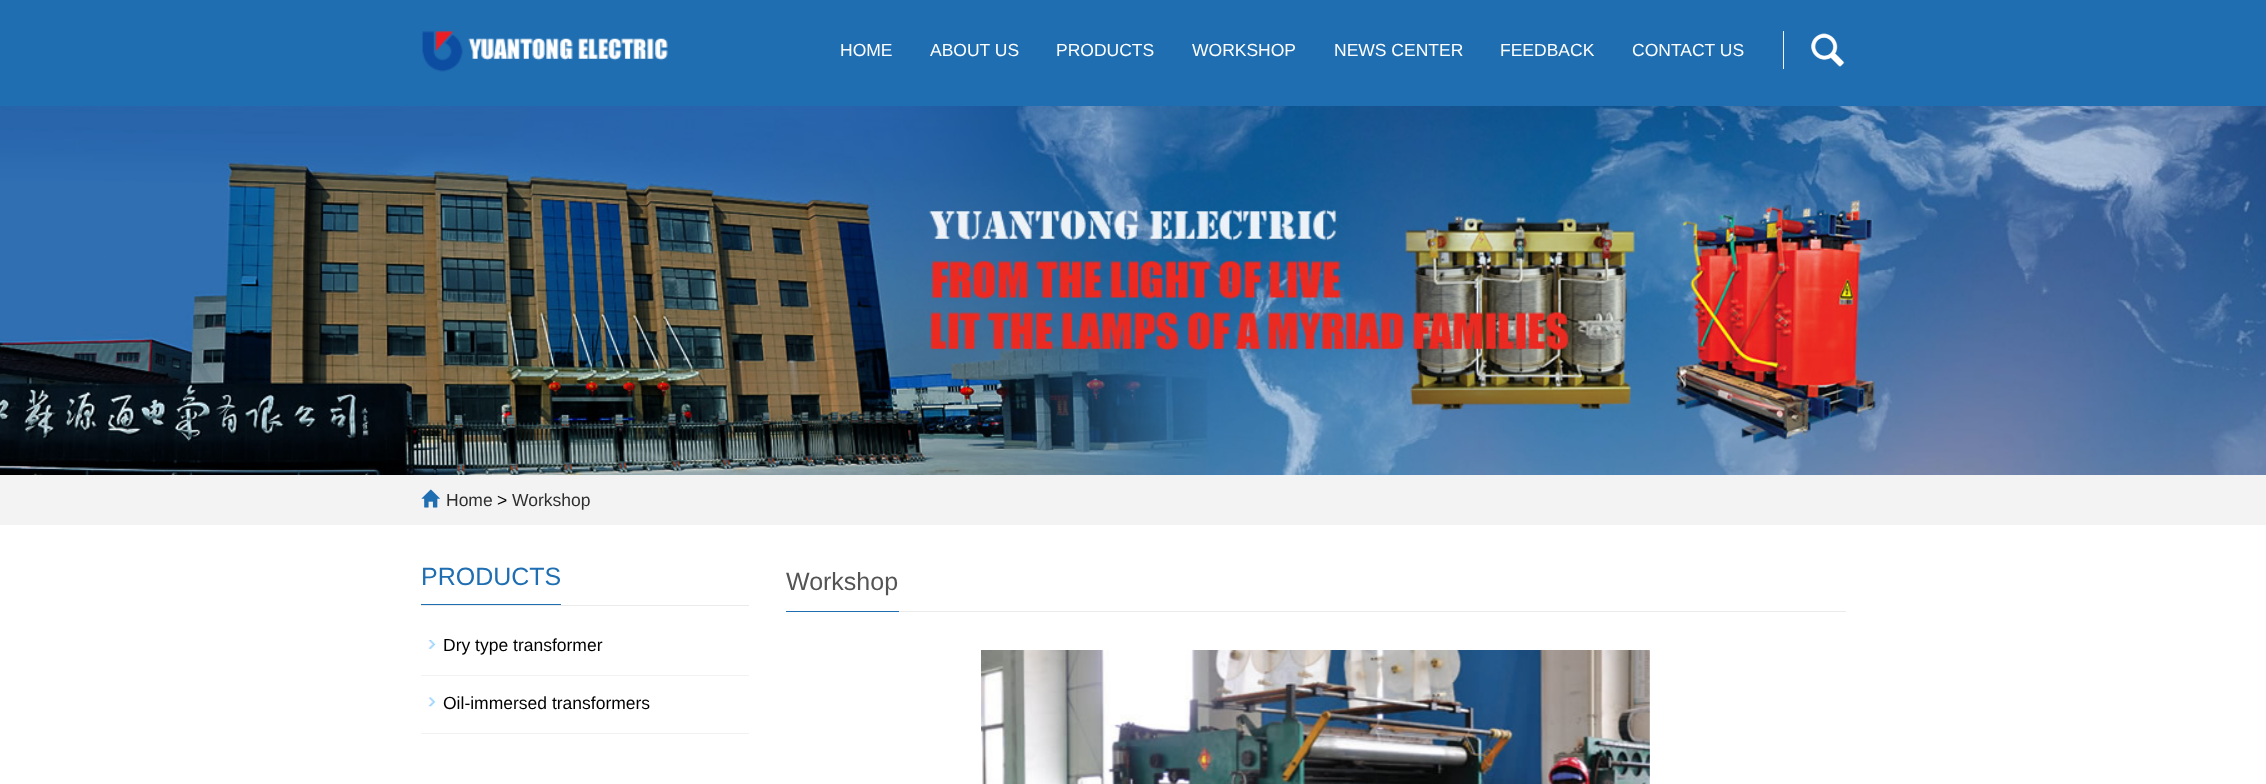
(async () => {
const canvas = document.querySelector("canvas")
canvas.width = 2266
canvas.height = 784
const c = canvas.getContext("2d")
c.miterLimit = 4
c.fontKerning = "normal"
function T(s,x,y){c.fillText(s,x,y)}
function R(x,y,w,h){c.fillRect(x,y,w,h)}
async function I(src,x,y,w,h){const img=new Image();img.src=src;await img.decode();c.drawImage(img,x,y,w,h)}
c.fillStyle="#fff"
R(0,0,2266,784)
c.fillStyle="#1f6eb1"
R(0,0,2266,106)
await I("1.png",422,31,246,41)
c.font="17.5px Liberation Sans"
c.fillStyle="#fff"
T("HOME",840,56)
T("ABOUT US",930,56)
T("PRODUCTS",1056,56)
T("WORKSHOP",1192,56)
T("NEWS CENTER",1334,56)
T("FEEDBACK",1500,56)
T("CONTACT US",1632,56)
c.fillStyle="#f1f1f1"
R(1783,31,1,38)
await I("2.png",1811,33,34,34)
await I("3.png",0,106,2266,369)
c.fillStyle="#f3f3f3"
R(0,475,2266,50)
await I("4.png",421,489,19,19)
c.fillStyle="#2f2f2f"
T("Home",446,506)
c.fillStyle="#000"
T(">",497,506)
c.fillStyle="#2f2f2f"
T("Workshop",512,506)
c.fillStyle="#ebebeb"
R(421,605,328,1)
c.fillStyle="#1f6eb1"
R(421,604,140,1)
c.font="25px Liberation Sans"
T("PRODUCTS",421,585)
await I("5.png",428,640,8,9)
c.fillStyle="#f2f2f2"
R(421,675,328,1)
c.font="17.5px Liberation Sans"
c.fillStyle="#000"
T("Dry type transformer",443,651)
await I("6.png",428,697,8,10)
c.fillStyle="#f2f2f2"
R(421,733,328,1)
c.fillStyle="#000"
T("Oil-immersed transformers",443,709)
c.fillStyle="#ebebeb"
R(899,611,947,1)
c.fillStyle="#1f6eb1"
R(786,611,113,1)
c.font="25px Liberation Sans"
c.fillStyle="#545454"
T("Workshop",786,590)
await I("7.png",981,650,669,134)
})()
